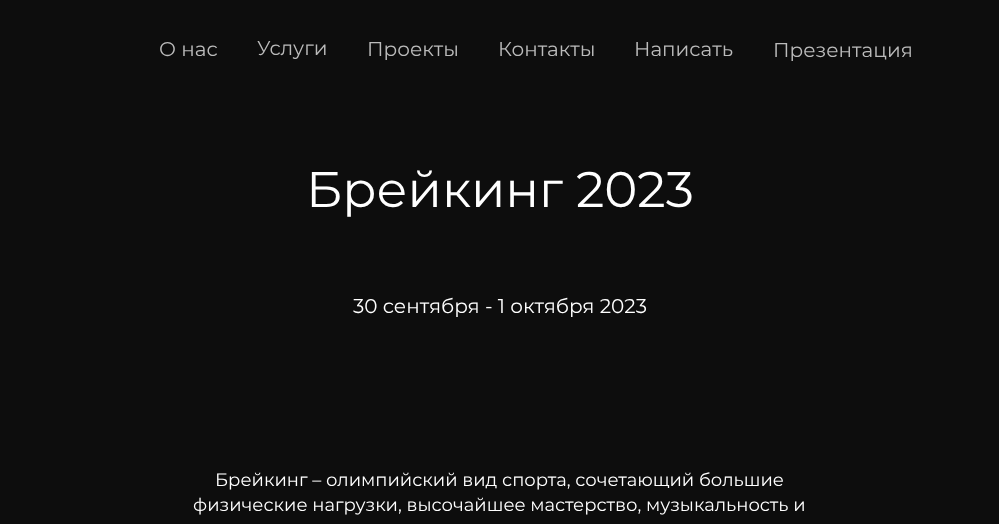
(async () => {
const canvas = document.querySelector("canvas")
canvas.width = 999
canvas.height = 524
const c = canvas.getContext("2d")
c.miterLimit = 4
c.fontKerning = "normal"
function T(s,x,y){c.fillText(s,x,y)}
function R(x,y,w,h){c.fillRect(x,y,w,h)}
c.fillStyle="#0d0d0d"
R(0,0,999,524)
c.font="20px Montserrat"
c.fillStyle="#bbb"
T("О нас",159,56)
T("Услуги",257,55)
T("Проекты",367,56)
T("Контакты",498,56)
T("Написать",634,56)
T("Презентация",773,57)
c.font="50px Montserrat"
c.fillStyle="#fff"
T("Брейкинг 2023",306,207)
c.font="20px Montserrat"
T("30 сентября - 1 октября 2023",353,313)
c.font="18px Montserrat"
T("Брейкинг – олимпийский вид спорта, сочетающий большие",215,486)
T("физические нагрузки, высочайшее мастерство, музыкальность и",193,511)
})()
